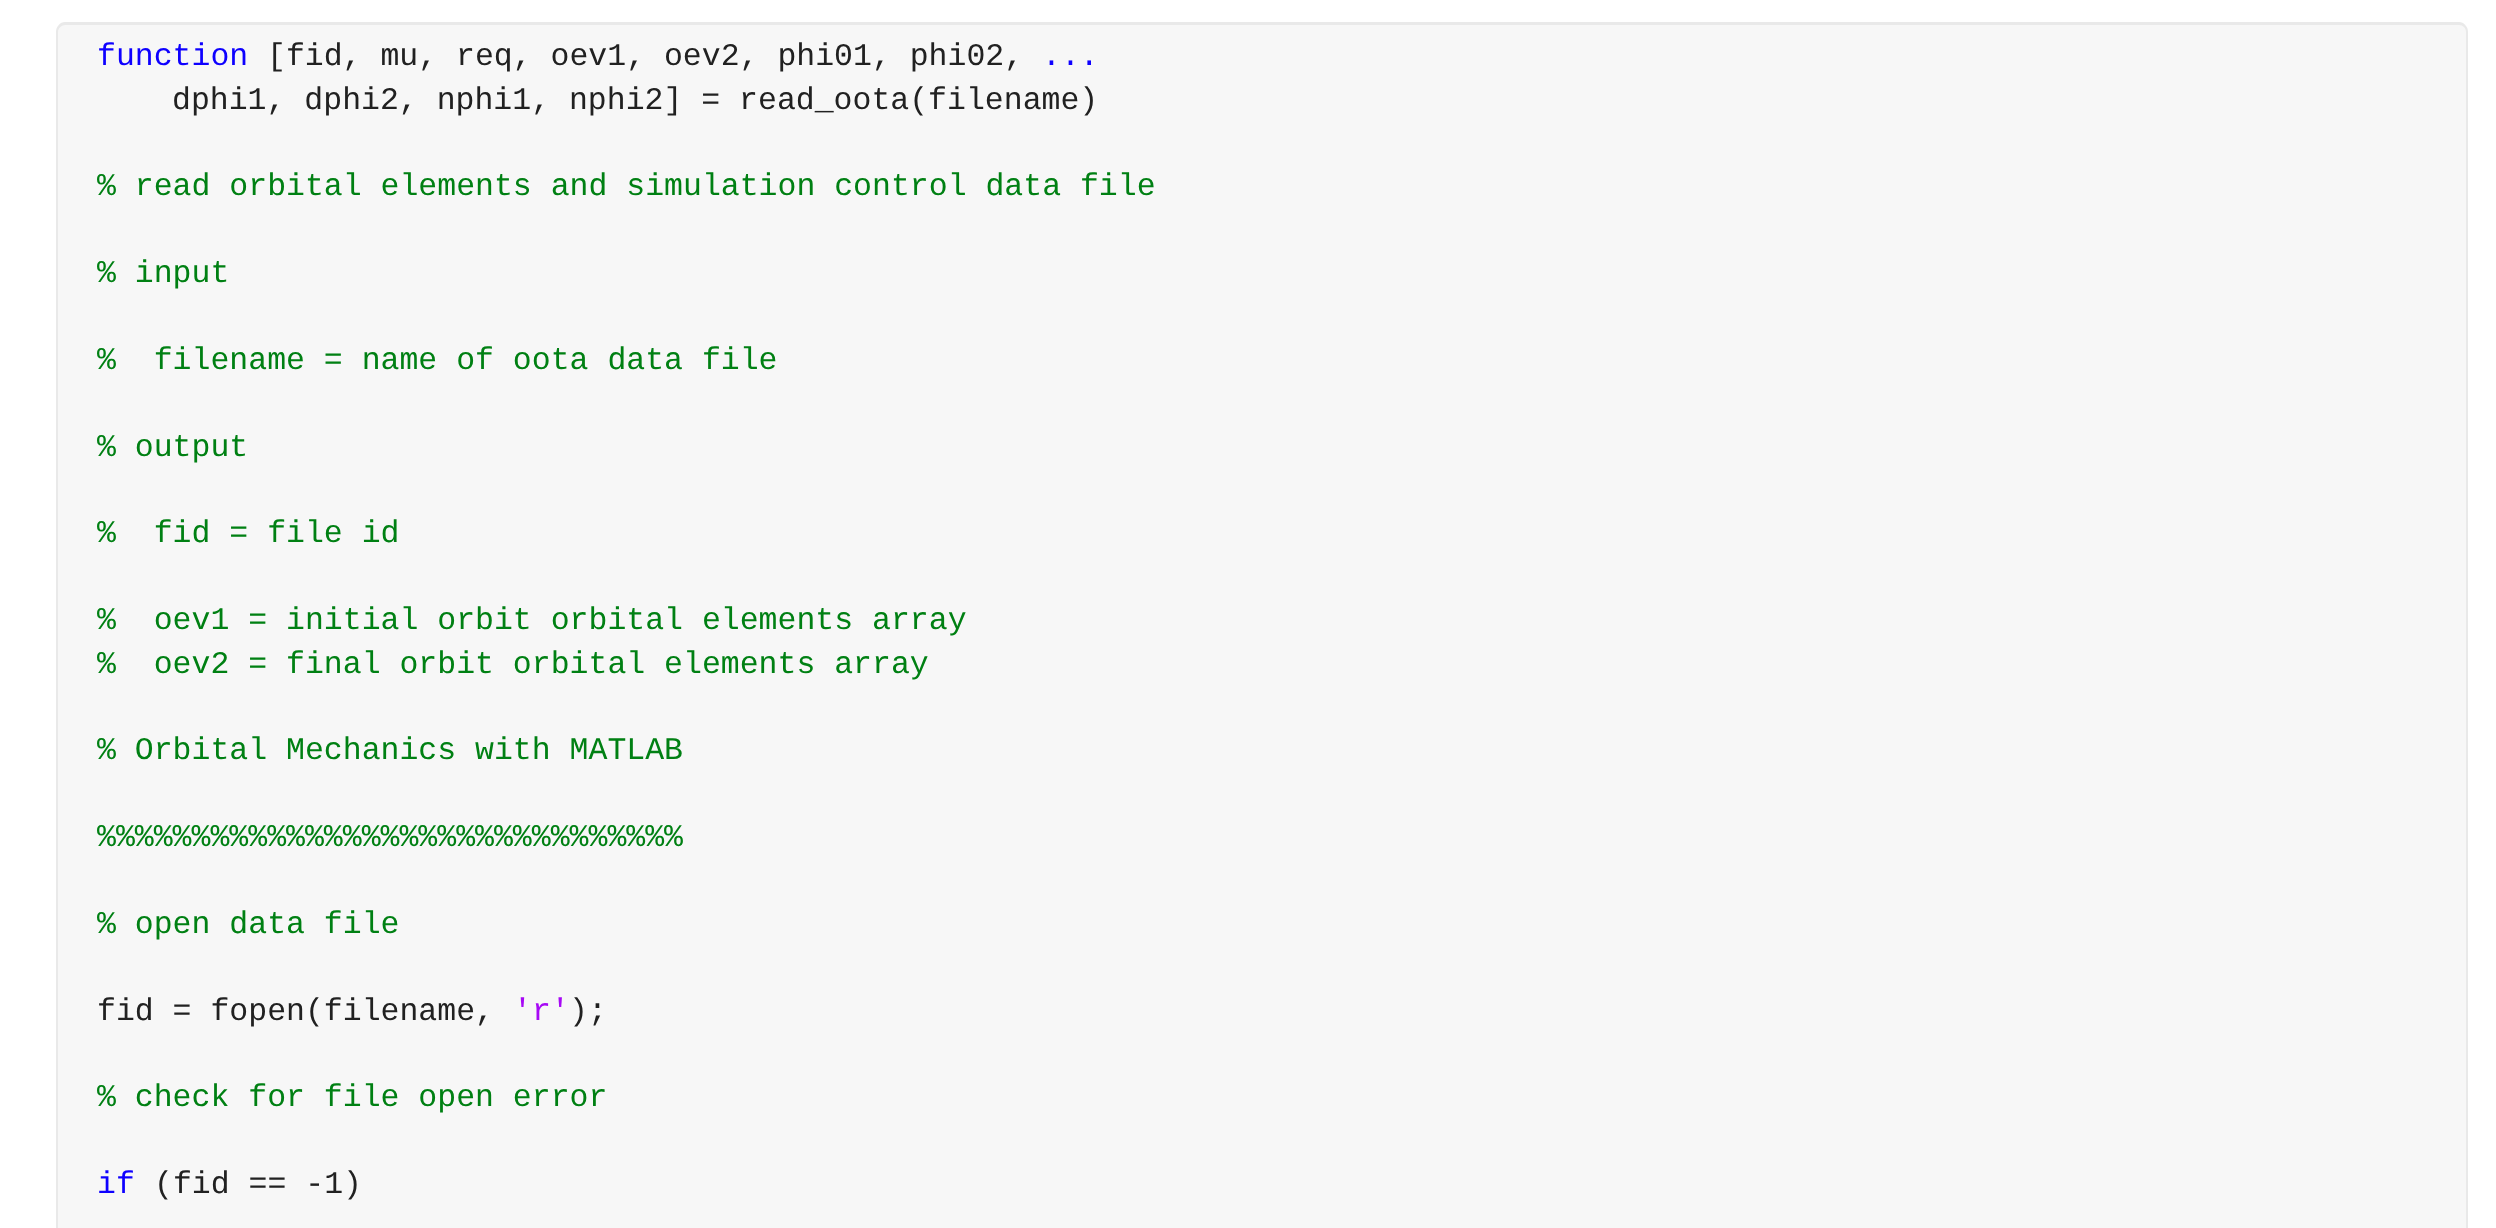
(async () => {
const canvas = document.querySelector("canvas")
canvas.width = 2496
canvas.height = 1228
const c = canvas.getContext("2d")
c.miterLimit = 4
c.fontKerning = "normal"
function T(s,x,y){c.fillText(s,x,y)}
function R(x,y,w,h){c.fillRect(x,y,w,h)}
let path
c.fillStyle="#fff"
R(0,0,2496,1228)
c.fillStyle="#f7f7f7"
path = new Path2D("M65 23h2394c5 0 9 4 9 9v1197h-2412v-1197c0-5 4-9 9-9z")
c.fill(path)
c.fillStyle="#e9e9e9"
path = new Path2D("M65 22h2394c5 0 9 5 9 10v47h-2412v-47c0-5 4-10 9-10zm0 3h2394c4 0 7 3 7 7v47h-2408v-47c0-4 4-7 7-7z")
c.fill(path,"evenodd")
c.font="31.5px Liberation Mono"
c.fillStyle="#0e00ff"
T("function",97,65)
c.fillStyle="#212121"
T("[fid, mu, req, oev1, oev2, phi01, phi02,",267,65)
c.fillStyle="#0e00ff"
T("...",1042,65)
c.fillStyle="#e9e9e9"
R(2466,79,2,1149)
R(56,79,2,1149)
c.fillStyle="#212121"
T("dphi1, dphi2, nphi1, nphi2] = read_oota(filename)",172,109)
c.fillStyle="#008013"
T("% read orbital elements and simulation control data file",97,195)
T("% input",97,282)
T("%  filename = name of oota data file",97,369)
T("% output",97,456)
T("%  fid = file id",97,542)
T("%  oev1 = initial orbit orbital elements array",97,629)
T("%  oev2 = final orbit orbital elements array",97,673)
T("% Orbital Mechanics with MATLAB",97,759)
T("%%%%%%%%%%%%%%%%%%%%%%%%%%%%%%%",97,846)
T("% open data file",97,933)
c.fillStyle="#212121"
T("fid = fopen(filename,",97,1020)
c.fillStyle="#a709f5"
T("'r'",513,1020)
c.fillStyle="#212121"
T(");",569,1020)
c.fillStyle="#008013"
T("% check for file open error",97,1106)
c.fillStyle="#0e00ff"
T("if",97,1193)
c.fillStyle="#212121"
T("(fid == -1)",154,1193)
})()
